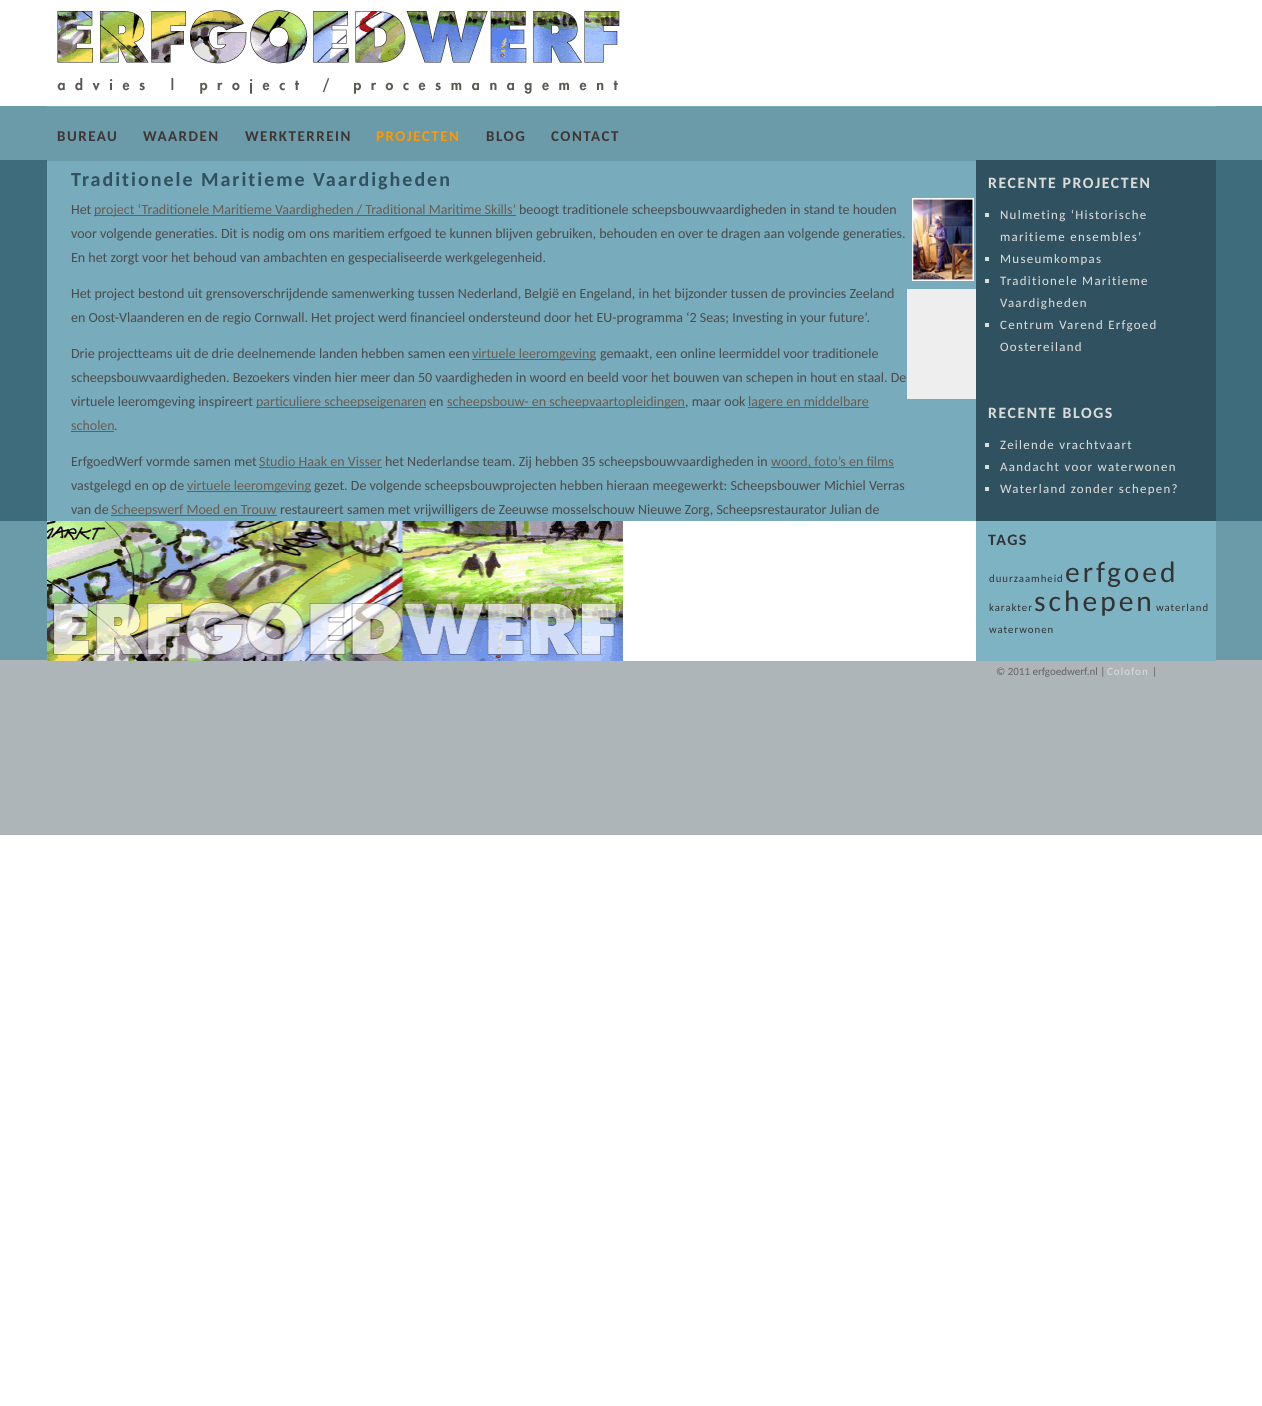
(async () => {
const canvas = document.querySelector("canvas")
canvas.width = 1262
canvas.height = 1406
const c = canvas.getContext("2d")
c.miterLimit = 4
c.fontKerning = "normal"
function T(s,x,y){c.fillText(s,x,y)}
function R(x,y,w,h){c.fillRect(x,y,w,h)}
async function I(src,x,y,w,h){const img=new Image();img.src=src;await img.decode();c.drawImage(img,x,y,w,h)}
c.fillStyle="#fff"
R(0,0,1262,1406)
await I("1.png",0,106,1262,729)
c.fillStyle="#78abbb"
R(47,106,1169,415)
await I("2.png",57,10,563,84)
c.fillStyle="#6b9aa8"
R(47,107,1169,54)
c.letterSpacing="1.5px"
c.font="bold 15px Carlito"
c.fillStyle="#3e3634"
T("BUREAU",57,141)
T("WAARDEN",143,141)
T("WERKTERREIN",245,141)
c.fillStyle="#f90"
T("PROJECTEN",376,141)
c.fillStyle="#3e3634"
T("BLOG",486,141)
T("CONTACT",551,141)
c.letterSpacing="2px"
c.font="bold 20px Carlito"
c.fillStyle="#30515f"
T("Traditionele Maritieme Vaardigheden",71,186)
c.letterSpacing="0px"
c.font="14px Carlito"
c.fillStyle="#4c4c4d"
T("Het",71,214)
c.fillStyle="#6b5d51"
R(94,215,422,1)
T("project ‘Traditionele Maritieme Vaardigheden / Traditional Maritime Skills’",94,214)
c.fillStyle="#4c4c4d"
T("beoogt traditionele scheepsbouwvaardigheden in stand te houden",519,214)
T("voor volgende generaties. Dit is nodig om ons maritiem erfgoed te kunnen blijven gebruiken, behouden en over te dragen aan volgende generaties.",71,238)
T("En het zorgt voor het behoud van ambachten en gespecialiseerde werkgelegenheid.",71,262)
T("Het project bestond uit grensoverschrijdende samenwerking tussen Nederland, België en Engeland, in het bijzonder tussen de provincies Zeeland",71,298)
T("en Oost-Vlaanderen en de regio Cornwall. Het project werd financieel ondersteund door het EU-programma ‘2 Seas; Investing in your future’.",71,322)
T("Drie projectteams uit de drie deelnemende landen hebben samen een",71,358)
c.fillStyle="#6b5d51"
R(472,359,124,1)
T("virtuele leeromgeving",472,358)
c.fillStyle="#4c4c4d"
T("gemaakt, een online leermiddel voor traditionele",600,358)
T("scheepsbouwvaardigheden. Bezoekers vinden hier meer dan 50 vaardigheden in woord en beeld voor het bouwen van schepen in hout en staal. De",71,382)
T("virtuele leeromgeving inspireert",71,406)
c.fillStyle="#6b5d51"
R(256,407,170,1)
T("particuliere scheepseigenaren",256,406)
c.fillStyle="#4c4c4d"
T("en",429,406)
c.fillStyle="#6b5d51"
R(447,407,238,1)
T("scheepsbouw- en scheepvaartopleidingen",447,406)
c.fillStyle="#4c4c4d"
T(", maar ook",685,406)
c.fillStyle="#6b5d51"
R(748,407,121,1)
T("lagere en middelbare",748,406)
T("scholen",71,430)
R(71,431,43,1)
c.fillStyle="#4c4c4d"
T(".",114,430)
T("ErfgoedWerf vormde samen met",71,466)
c.fillStyle="#6b5d51"
T("Studio Haak en Visser",259,466)
R(259,467,123,1)
c.fillStyle="#4c4c4d"
T("het Nederlandse team. Zij hebben 35 scheepsbouwvaardigheden in",385,466)
c.fillStyle="#6b5d51"
R(771,467,123,1)
T("woord, foto’s en films",771,466)
c.fillStyle="#4c4c4d"
T("vastgelegd en op de",71,490)
c.fillStyle="#6b5d51"
R(187,491,124,1)
T("virtuele leeromgeving",187,490)
c.fillStyle="#4c4c4d"
T("gezet. De volgende scheepsbouwprojecten hebben hieraan meegewerkt: Scheepsbouwer Michiel Verras",314,490)
T("van de",71,514)
c.fillStyle="#6b5d51"
R(111,515,166,1)
T("Scheepswerf Moed en Trouw",111,514)
c.fillStyle="#4c4c4d"
T("restaureert samen met vrijwilligers de Zeeuwse mosselschouw Nieuwe Zorg, Scheepsrestaurator Julian de",280,514)
await I("3.png",912,198,62,83)
c.fillStyle="#eee"
R(907,289,69,110)
c.fillStyle="#30515f"
R(976,160,240,361)
c.letterSpacing="1.6px"
c.font="bold 15.75px Carlito"
c.fillStyle="#dbdbdb"
T("RECENTE PROJECTEN",988,188)
R(985,213,4,4)
c.letterSpacing="1.3px"
c.font="12.9px Carlito"
T("Nulmeting ‘Historische",1000,219)
T("maritieme ensembles’",1000,241)
R(985,257,4,4)
T("Museumkompas",1000,263)
R(985,279,4,4)
T("Traditionele Maritieme",1000,285)
T("Vaardigheden",1000,307)
R(985,323,4,4)
T("Centrum Varend Erfgoed",1000,329)
T("Oostereiland",1000,351)
c.letterSpacing="1.6px"
c.font="bold 15.75px Carlito"
T("RECENTE BLOGS",988,418)
R(985,443,4,4)
c.letterSpacing="1.3px"
c.font="12.9px Carlito"
T("Zeilende vrachtvaart",1000,449)
R(985,465,4,4)
T("Aandacht voor waterwonen",1000,471)
R(985,487,4,4)
T("Waterland zonder schepen?",1000,493)
c.fillStyle="#fff"
R(623,521,353,140)
await I("4.png",47,521,576,140)
c.fillStyle="#7eb3c4"
R(976,521,240,140)
c.letterSpacing="1.5px"
c.font="bold 16px Carlito"
c.fillStyle="#333"
T("TAGS",988,545)
c.letterSpacing="1px"
c.font="10.75px Carlito"
T("duurzaamheid",989,582)
c.letterSpacing="3px"
c.font="29.5px Carlito"
T("erfgoed",1065,582)
c.letterSpacing="1px"
c.font="10.75px Carlito"
T("karakter",989,611)
c.letterSpacing="3px"
c.font="29.5px Carlito"
T("schepen",1034,611)
c.letterSpacing="1px"
c.font="10.75px Carlito"
T("waterland",1156,611)
T("waterwonen",989,633)
c.letterSpacing="0px"
c.font="11px Carlito"
c.fillStyle="#666"
T("© 2011 erfgoedwerf.nl |",996,675)
c.letterSpacing="1px"
c.fillStyle="#dbdbdb"
T("Colofon",1107,675)
c.letterSpacing="0px"
c.fillStyle="#666"
T("|",1152,675)
})()
